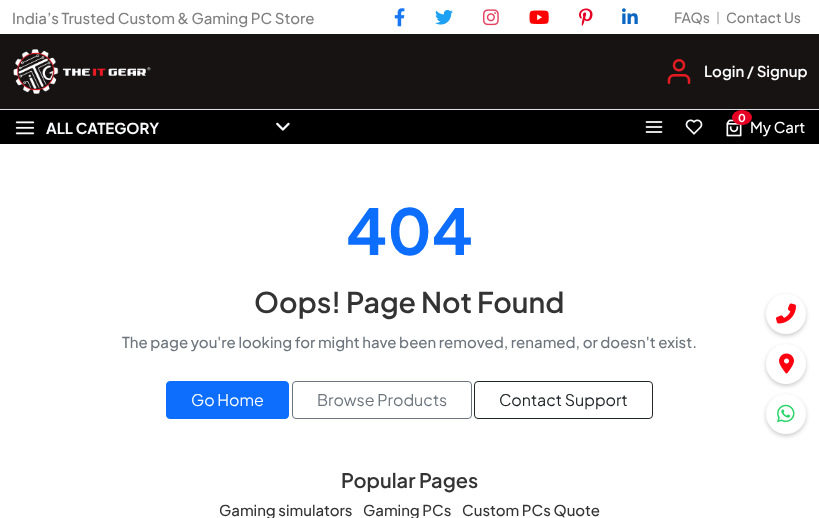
(async () => {
const canvas = document.querySelector("canvas")
canvas.width = 819
canvas.height = 518
const c = canvas.getContext("2d")
c.miterLimit = 4
c.fontKerning = "normal"
function T(s,x,y){c.fillText(s,x,y)}
function R(x,y,w,h){c.fillRect(x,y,w,h)}
async function I(src,x,y,w,h){const img=new Image();img.src=src;await img.decode();c.drawImage(img,x,y,w,h)}
c.fillStyle="#fff"
R(0,0,819,518)
c.font="500 15px Plus Jakarta Sans"
c.fillStyle="#808080"
T("India’s Trusted Custom & Gaming PC Store",12,24)
await I("1.png",394,8,11,19)
await I("2.png",435,10,18,15)
await I("3.png",483,9,16,17)
await I("4.png",529,10,20,14)
await I("5.png",579,8,14,18)
await I("6.png",622,8,16,16)
c.font="500 14px Plus Jakarta Sans"
T("FAQs",674,23)
c.font="500 12px Plus Jakarta Sans"
c.fillStyle="#aaa"
T("|",716,22)
c.font="500 14px Plus Jakarta Sans"
c.fillStyle="#808080"
T("Contact Us",726,23)
c.fillStyle="#dee2e6"
R(0,109,819,1)
c.fillStyle="#171313"
R(0,34,819,75)
await I("7.png",13,49,138,45)
await I("8.png",667,59,24,25)
c.font="600 15px Plus Jakarta Sans"
c.fillStyle="#fff"
T("Login / Signup",704,77)
c.fillStyle="#000"
R(0,110,819,34)
await I("9.png",15,121,20,14)
c.font="bold 15px Plus Jakarta Sans"
c.fillStyle="#f8f9fa"
T("ALL CATEGORY",46,134)
await I("10.png",276,122,14,9)
await I("11.png",645,121,18,12)
await I("12.png",685,119,18,16)
await I("13.png",726,119,16,18)
c.font="500 15px Plus Jakarta Sans"
c.fillStyle="#fff"
T("My Cart",750,133)
c.fillStyle="#e60023"
c.beginPath()
c.ellipse(742,117.5,10,7.5,0,0,7)
c.fill()
c.font="bold 11px Plus Jakarta Sans"
c.fillStyle="#fff"
T("0",738,122)
c.font="bold 63px Plus Jakarta Sans"
c.fillStyle="#0d6efd"
T("404",346,255)
c.font="600 28.5px Plus Jakarta Sans"
c.fillStyle="#333"
T("Oops! Page Not Found",254,313)
c.font="500 15px Plus Jakarta Sans"
c.fillStyle="#6c757d"
T("The page you're looking for might have been removed, renamed, or doesn't exist.",122,348)
c.fillStyle="#0d6efd"
c.beginPath()
c.roundRect(166.5,381.5,122,37,3.5)
c.fill()
c.strokeStyle="#0d6efd"
c.stroke()
c.font="16px Plus Jakarta Sans"
c.fillStyle="#fff"
T("Go Home",191,406)
c.beginPath()
c.roundRect(292.5,381.5,179,37,3.5)
c.strokeStyle="#6c757d"
c.stroke()
c.fillStyle="#6c757d"
T("Browse Products",317,406)
c.beginPath()
c.roundRect(474.5,381.5,178,37,3.5)
c.strokeStyle="#212529"
c.stroke()
c.fillStyle="#212529"
T("Contact Support",499,406)
c.font="600 20px Plus Jakarta Sans"
c.fillStyle="#333"
T("Popular Pages",341,488)
c.font="500 15px Plus Jakarta Sans"
T("Gaming simulators",219,516)
T("Gaming PCs",363,516)
T("Custom PCs Quote",462,516)
c.fillStyle="#00000033"
c.filter="blur(2px)"
c.beginPath()
c.roundRect(766,296,40,40,20)
c.fill()
c.filter="none"
c.fillStyle="#fff"
c.beginPath()
c.arc(786,314,20,0,7)
c.fill()
await I("14.png",776,303,20,21)
c.fillStyle="#00000033"
c.filter="blur(2px)"
c.beginPath()
c.roundRect(766,346,40,40,20)
c.fill()
c.filter="none"
c.fillStyle="#fff"
c.beginPath()
c.arc(786,364,20,0,7)
c.fill()
await I("15.png",779,353,15,21)
c.fillStyle="#00000033"
c.filter="blur(2px)"
c.beginPath()
c.roundRect(766,396,40,40,20)
c.fill()
c.filter="none"
c.fillStyle="#fff"
c.beginPath()
c.arc(786,414,20,0,7)
c.fill()
await I("16.png",777,404,18,19)
})()
